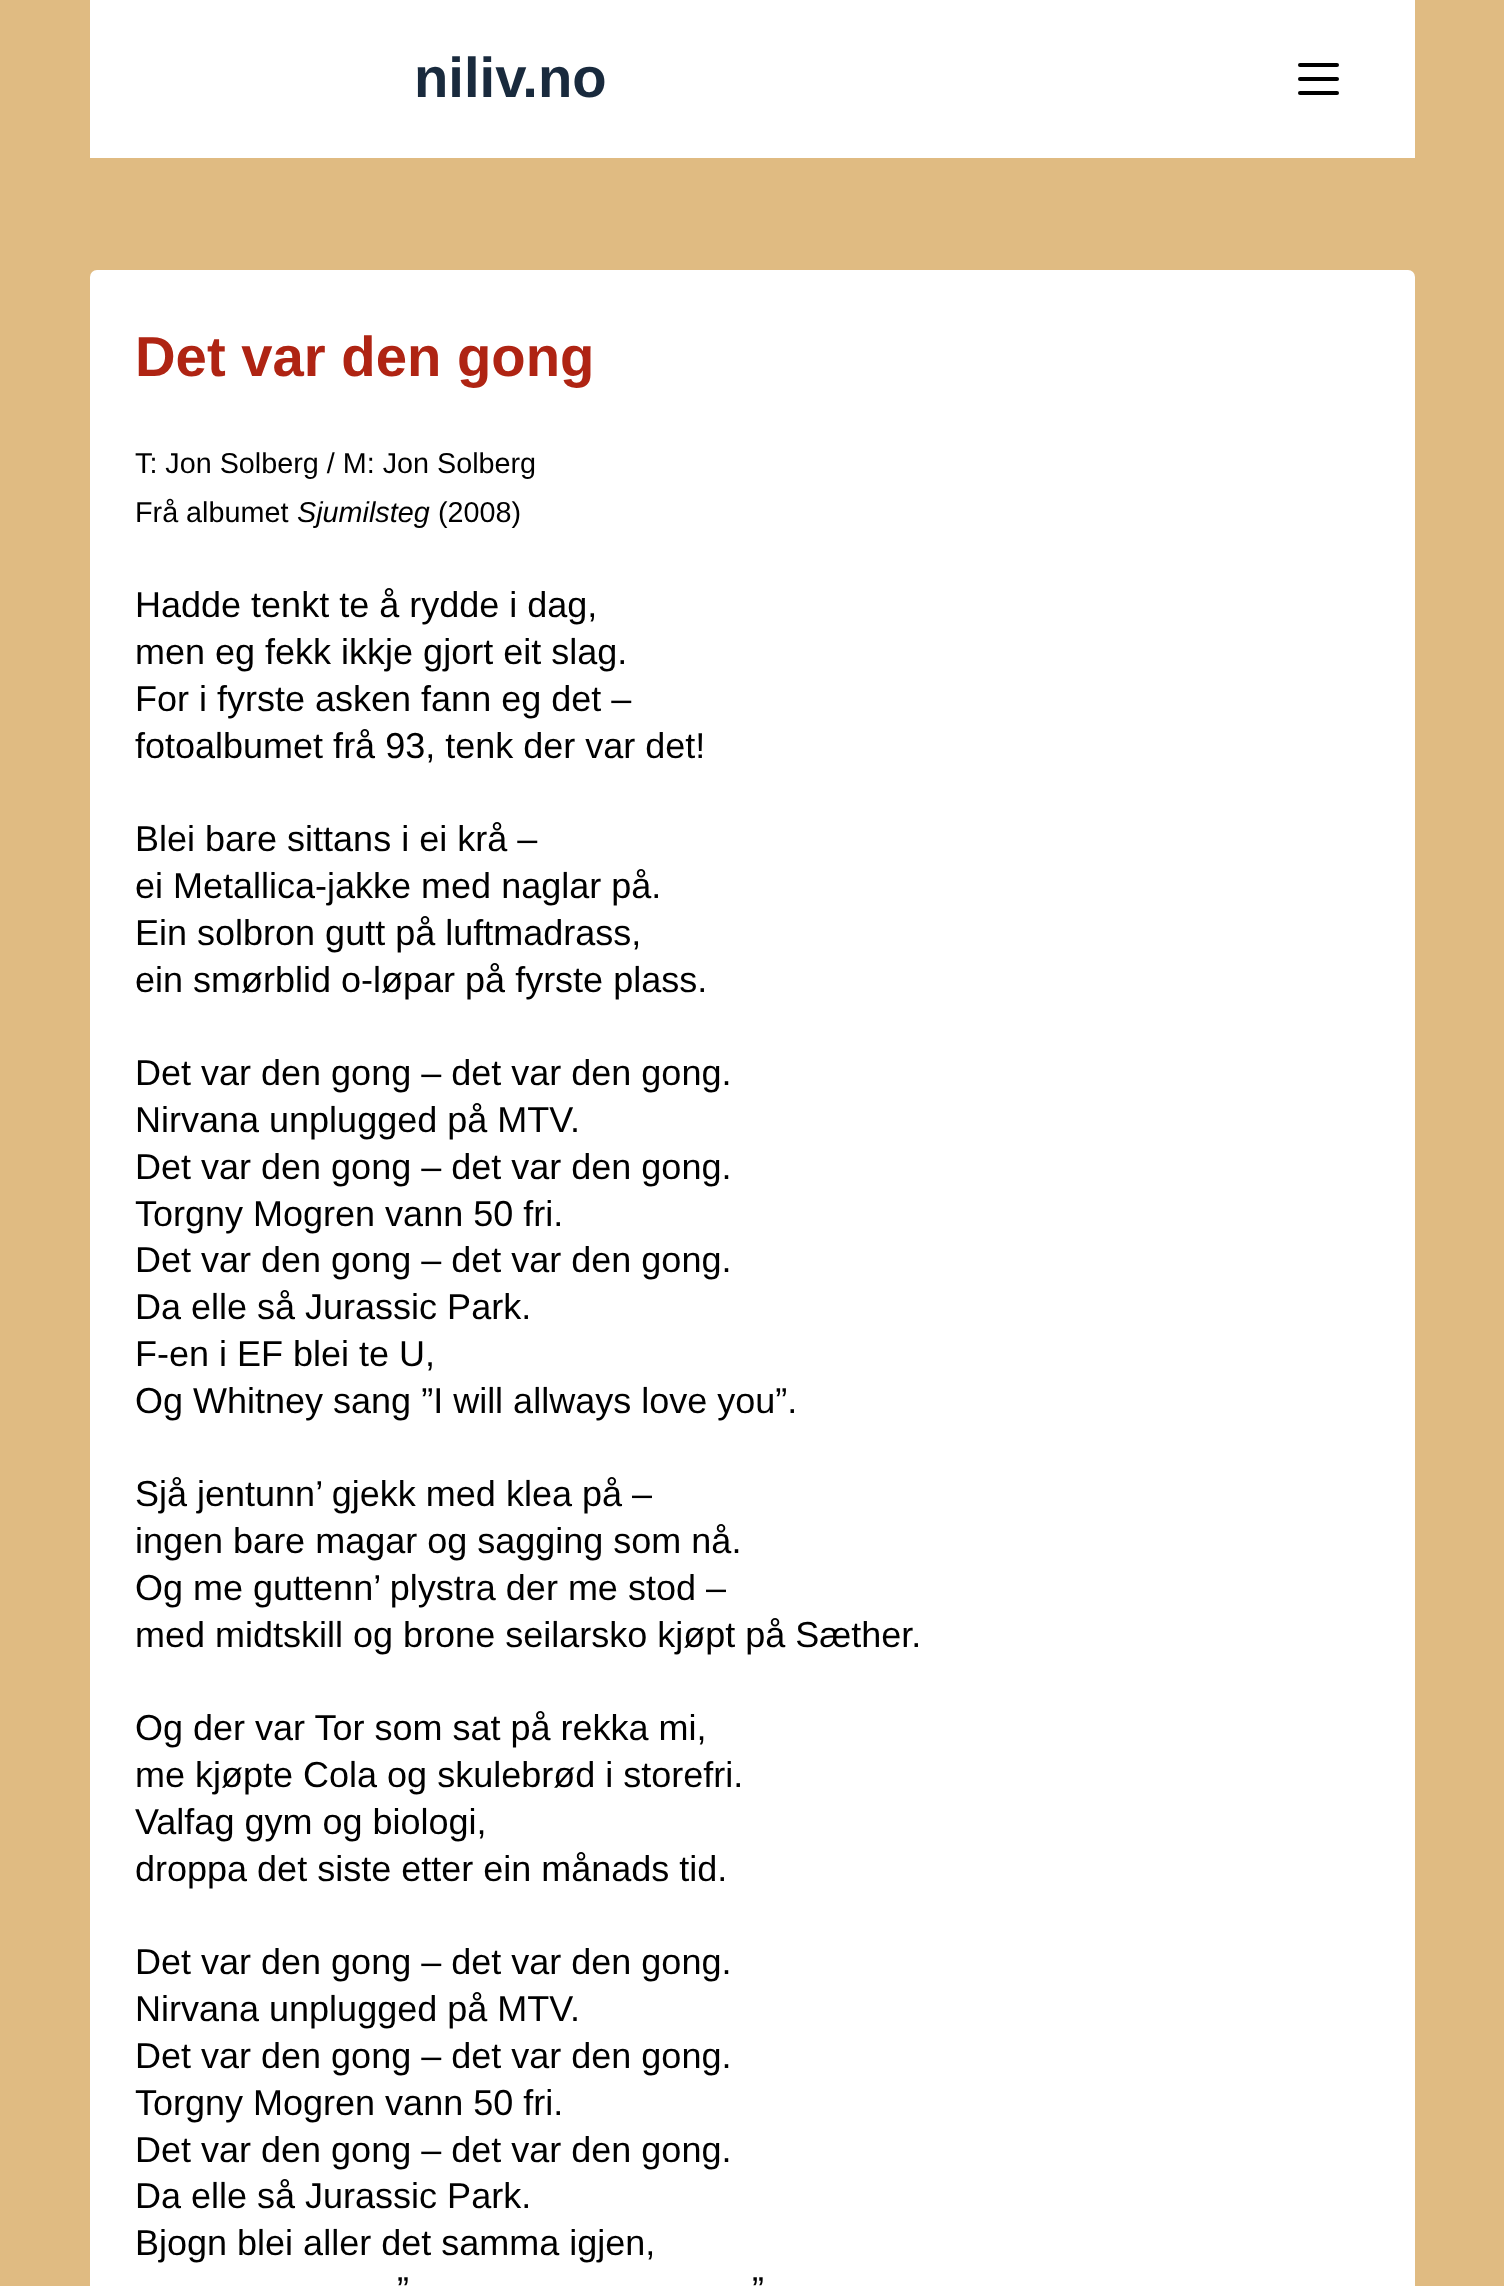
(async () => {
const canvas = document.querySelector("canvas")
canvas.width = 1504
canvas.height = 2286
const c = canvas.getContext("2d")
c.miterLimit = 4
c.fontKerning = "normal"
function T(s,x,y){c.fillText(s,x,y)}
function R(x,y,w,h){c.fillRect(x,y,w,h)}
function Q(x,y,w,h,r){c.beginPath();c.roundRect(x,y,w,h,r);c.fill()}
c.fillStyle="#e0bb82"
R(0,0,1504,2286)
c.fillStyle="#fff"
R(90,0,1325,158)
c.font="bold 56.25px Liberation Sans"
c.fillStyle="#192a3d"
T("niliv.no",414,97)
c.fillStyle="#000"
Q(1298,63,41,4,2)
Q(1298,77,41,4,2)
Q(1298,91,41,4,2)
c.fillStyle="#fff"
Q(90,270,1325,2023,7)
c.fillStyle="#af2413"
T("Det var den gong",135,376)
c.font="28.75px Liberation Sans"
c.fillStyle="#000"
T("T: Jon Solberg / M: Jon Solberg",135,473)
T("Frå albumet",135,522)
c.font="italic 28.75px Liberation Sans"
T("Sjumilsteg",297,522)
c.font="28.75px Liberation Sans"
T("(2008)",438,522)
c.font="36px Liberation Sans"
T("Hadde tenkt te å rydde i dag,",135,617)
T("men eg fekk ikkje gjort eit slag.",135,664)
T("For i fyrste asken fann eg det –",135,711)
T("fotoalbumet frå 93, tenk der var det!",135,758)
T("Blei bare sittans i ei krå –",135,851)
T("ei Metallica-jakke med naglar på.",135,898)
T("Ein solbron gutt på luftmadrass,",135,945)
T("ein smørblid o-løpar på fyrste plass.",135,992)
T("Det var den gong – det var den gong.",135,1085)
T("Nirvana unplugged på MTV.",135,1132)
T("Det var den gong – det var den gong.",135,1179)
T("Torgny Mogren vann 50 fri.",135,1226)
T("Det var den gong – det var den gong.",135,1272)
T("Da elle så Jurassic Park.",135,1319)
T("F-en i EF blei te U,",135,1366)
T("Og Whitney sang ”I will allways love you”.",135,1413)
T("Sjå jentunn’ gjekk med klea på –",135,1506)
T("ingen bare magar og sagging som nå.",135,1553)
T("Og me guttenn’ plystra der me stod –",135,1600)
T("med midtskill og brone seilarsko kjøpt på Sæther.",135,1647)
T("Og der var Tor som sat på rekka mi,",135,1740)
T("me kjøpte Cola og skulebrød i storefri.",135,1787)
T("Valfag gym og biologi,",135,1834)
T("droppa det siste etter ein månads tid.",135,1881)
T("Det var den gong – det var den gong.",135,1974)
T("Nirvana unplugged på MTV.",135,2021)
T("Det var den gong – det var den gong.",135,2068)
T("Torgny Mogren vann 50 fri.",135,2115)
T("Det var den gong – det var den gong.",135,2162)
T("Da elle så Jurassic Park.",135,2208)
T("Bjogn blei aller det samma igjen,",135,2255)
T("”",397,2302)
T("”",752,2302)
})()
